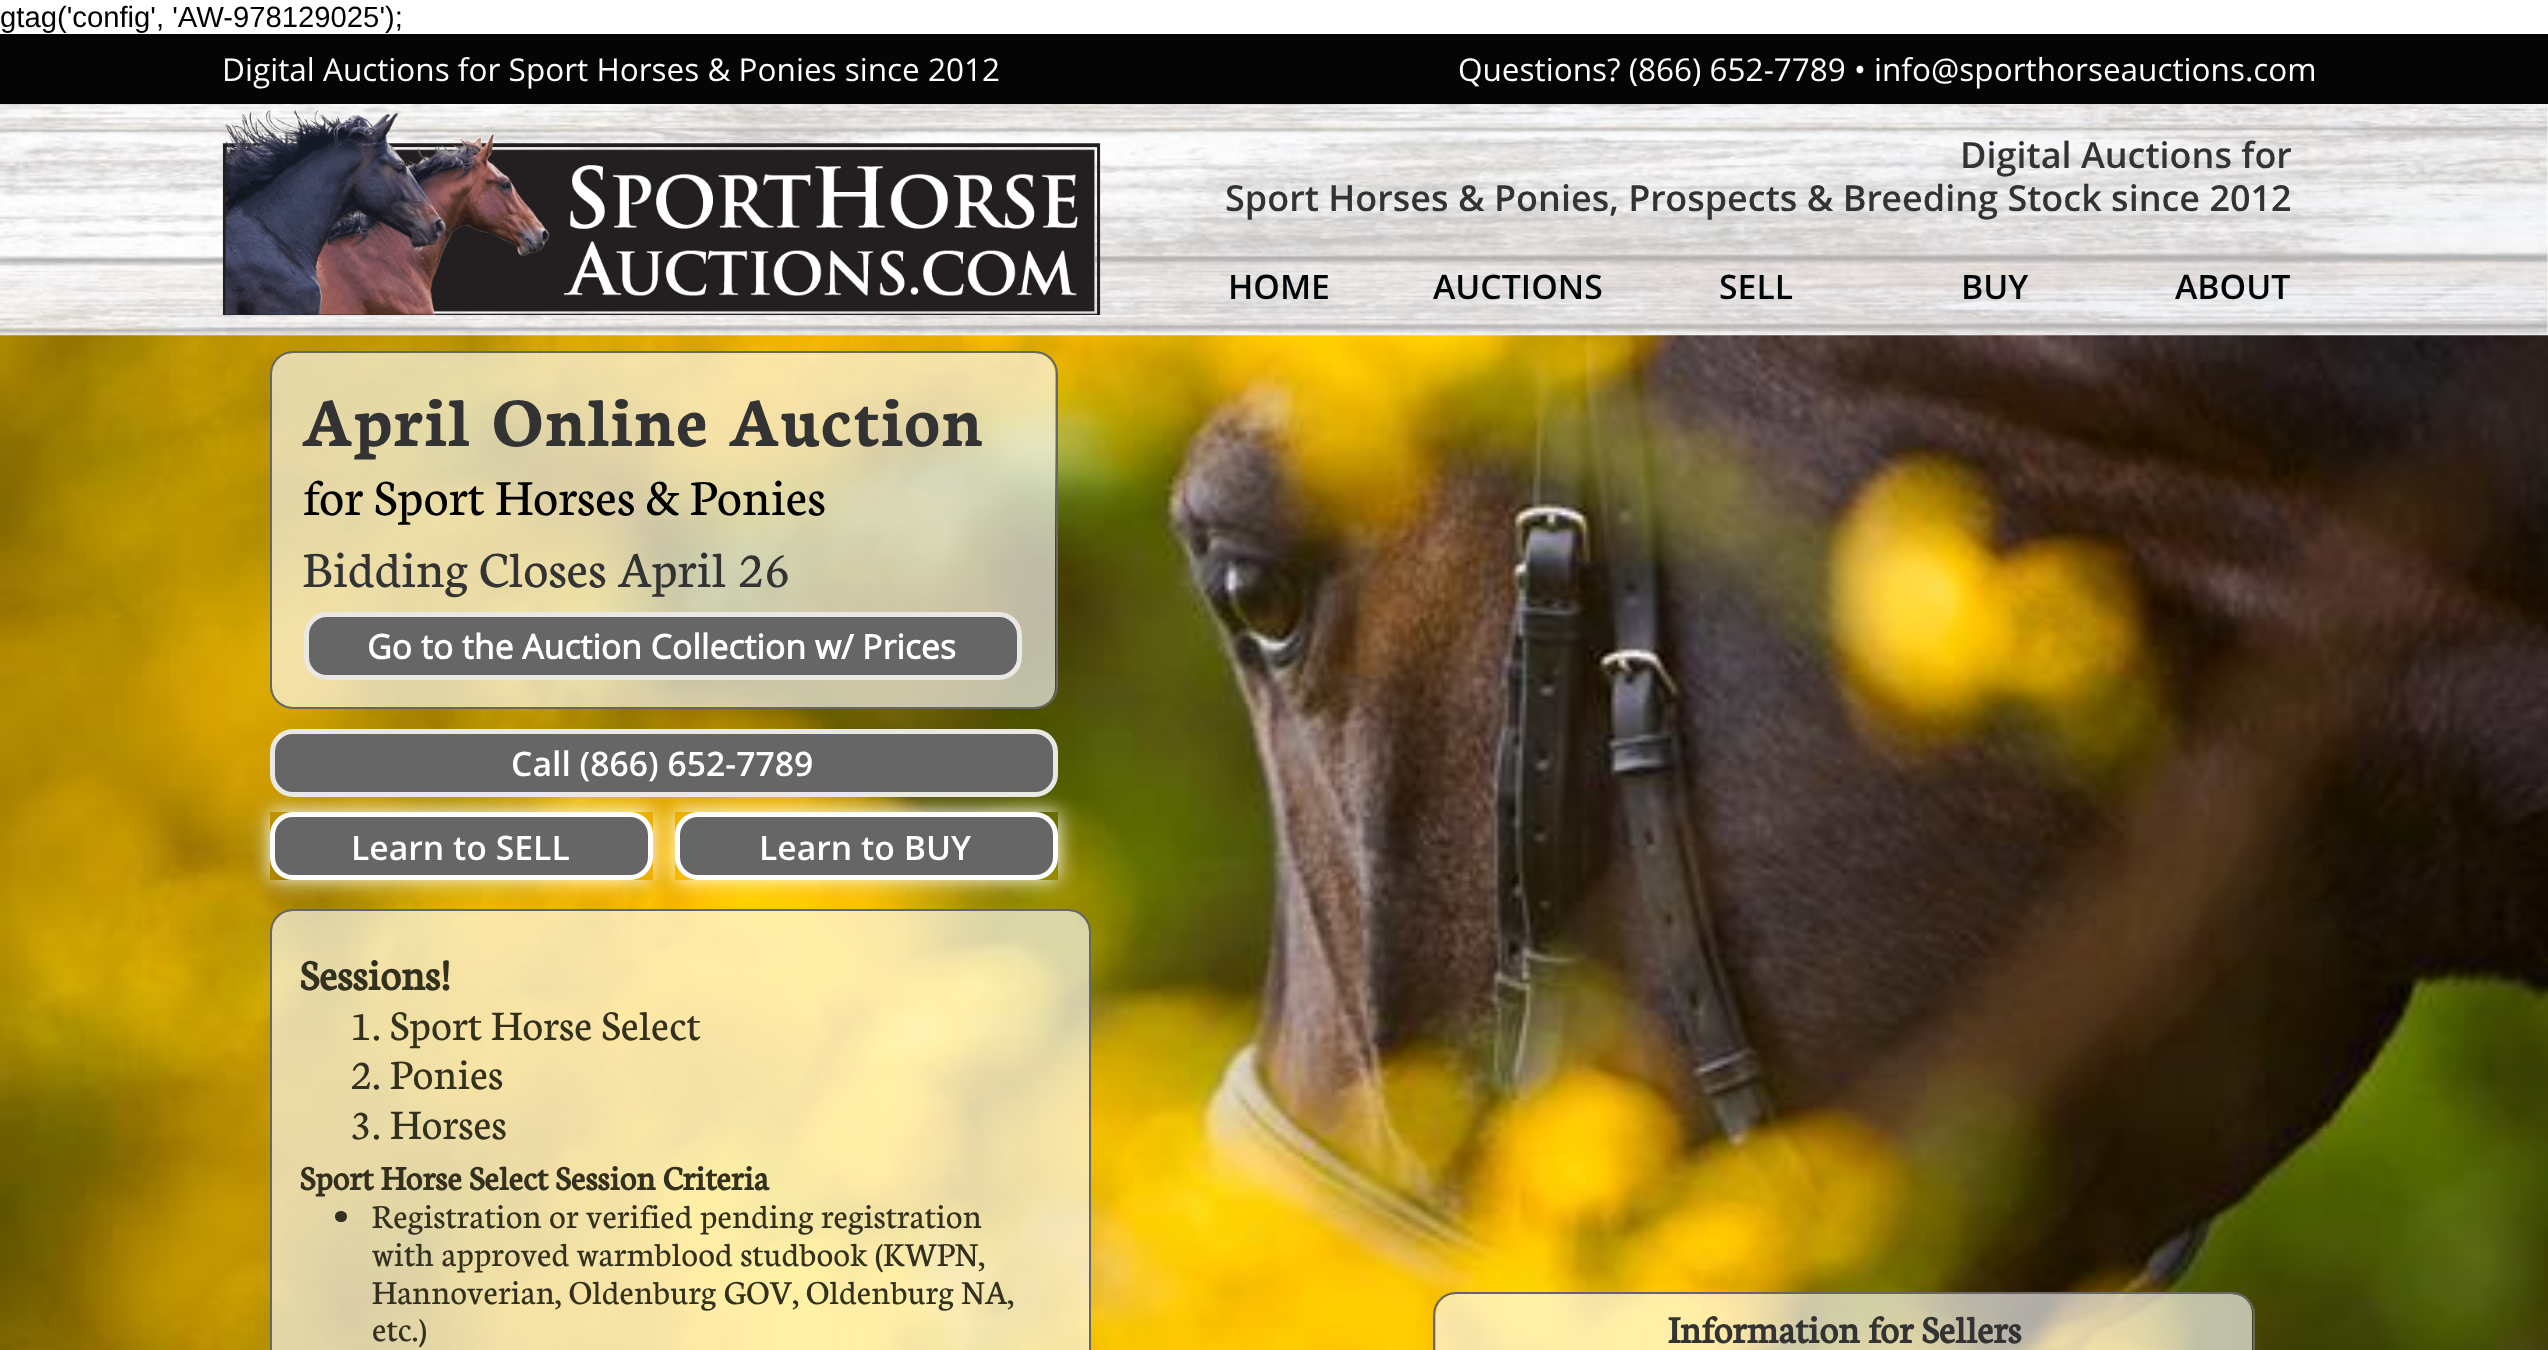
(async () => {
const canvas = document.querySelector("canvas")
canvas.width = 2548
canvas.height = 1350
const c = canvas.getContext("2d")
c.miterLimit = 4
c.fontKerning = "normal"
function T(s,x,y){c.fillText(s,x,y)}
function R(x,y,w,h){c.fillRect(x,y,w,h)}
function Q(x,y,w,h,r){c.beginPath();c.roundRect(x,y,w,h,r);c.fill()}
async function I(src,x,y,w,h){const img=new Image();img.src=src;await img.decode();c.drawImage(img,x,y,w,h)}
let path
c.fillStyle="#fff"
R(0,0,2548,1350)
c.font="29.25px Liberation Sans"
c.fillStyle="#000"
T("gtag('config', 'AW-978129025');",0,27)
c.fillStyle="#050505"
R(0,34,2548,70)
c.font="31.5px Open Sans"
c.fillStyle="#fff"
T("Digital Auctions for Sport Horses & Ponies since 2012",222,81)
T("Questions? (866) 652-7789 • info@sporthorseauctions.com",1458,81)
await I("2.png",0,104,2548,232)
await I("1.png",222,109,879,206)
c.font="600 36px Open Sans"
c.fillStyle="#333"
T("Digital Auctions for",1960,168)
T("Sport Horses & Ponies, Prospects & Breeding Stock since 2012",1225,211)
c.font="600 33.75px Open Sans"
c.fillStyle="#010609"
T("HOME",1228,299)
T("AUCTIONS",1433,299)
T("SELL",1719,299)
T("BUY",1961,299)
T("ABOUT",2175,299)
await I("3.png",0,335,2548,1015)
c.fillStyle="#ffffffa6"
Q(272,353,783,354,20)
c.beginPath()
c.roundRect(271,352,786,356,22)
c.strokeStyle="#666"
c.lineWidth=2
c.stroke()
c.letterSpacing="2.25px"
c.font="bold 74.25px 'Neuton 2'"
c.fillStyle="#333"
T("April Online Auction",303,446)
c.letterSpacing="0px"
c.font="54px Neuton"
c.fillStyle="#000"
T("for Sport Horses & Ponies",303,515)
c.fillStyle="#333"
T("Bidding Closes April 26",303,587)
c.fillStyle="#666"
c.beginPath()
c.roundRect(306.5,614.5,713,63,20.5)
c.fill()
c.strokeStyle="#e9e8e2"
c.lineWidth=5
c.stroke()
c.font="bold 33.75px Open Sans"
c.fillStyle="#fff"
T("Go to the Auction Collection w/ Prices",367,659)
c.fillStyle="#ffffffa6"
Q(272,911,817,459,20)
c.beginPath()
c.roundRect(271,910,819,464,22)
c.strokeStyle="#666"
c.lineWidth=2
c.stroke()
c.save()
path = new Path2D("M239 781h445v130h-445zm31 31h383v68h-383z")
c.clip(path,"evenodd")
c.fillStyle="#fff"
c.filter="blur(10px)"
c.beginPath()
c.rect(270,812,383,68)
c.fill()
c.filter="none"
c.restore()
c.fillStyle="#666"
c.beginPath()
c.roundRect(272.5,814.5,378,63,20.5)
c.fill()
c.strokeStyle="#fff"
c.lineWidth=5
c.stroke()
c.save()
path = new Path2D("M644 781h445v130h-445zm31 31h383v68h-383z")
c.clip(path,"evenodd")
c.fillStyle="#fff"
c.filter="blur(10px)"
c.beginPath()
c.rect(675,812,383,68)
c.fill()
c.filter="none"
c.restore()
c.beginPath()
c.roundRect(272.5,731.5,783,63,20.5)
c.fill()
c.strokeStyle="#e9e8e2"
c.stroke()
c.font="600 33.75px Open Sans"
c.fillStyle="#fff"
T("Call (866) 652-7789",511,776)
T("Learn to SELL",351,860)
c.fillStyle="#666"
c.beginPath()
c.roundRect(677.5,814.5,378,63,20.5)
c.fill()
c.strokeStyle="#fff"
c.stroke()
c.fillStyle="#fff"
T("Learn to BUY",759,860)
c.font="bold 45px Neuton"
c.fillStyle="#33301d"
T("Sessions!",300,990)
c.font="45px Neuton"
T("1. Sport Horse Select",350,1040)
T("2. Ponies",350,1089)
T("3. Horses",350,1139)
c.font="bold 36px Neuton"
T("Sport Horse Select Session Criteria",300,1190)
Q(335,1211,12,11,5.5)
c.font="36px Neuton"
T("Registration or verified pending registration",372,1228)
T("with approved warmblood studbook (KWPN,",372,1266)
T("Hannoverian, Oldenburg GOV, Oldenburg NA,",372,1304)
T("etc.)",372,1341)
c.fillStyle="#ffffffa6"
Q(1436,1294,816,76,20)
c.beginPath()
c.roundRect(1434,1293,820,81,22)
c.strokeStyle="#666"
c.lineWidth=2
c.stroke()
c.font="bold 40.5px Neuton"
c.fillStyle="#333"
T("Information for Sellers",1668,1343)
})()
